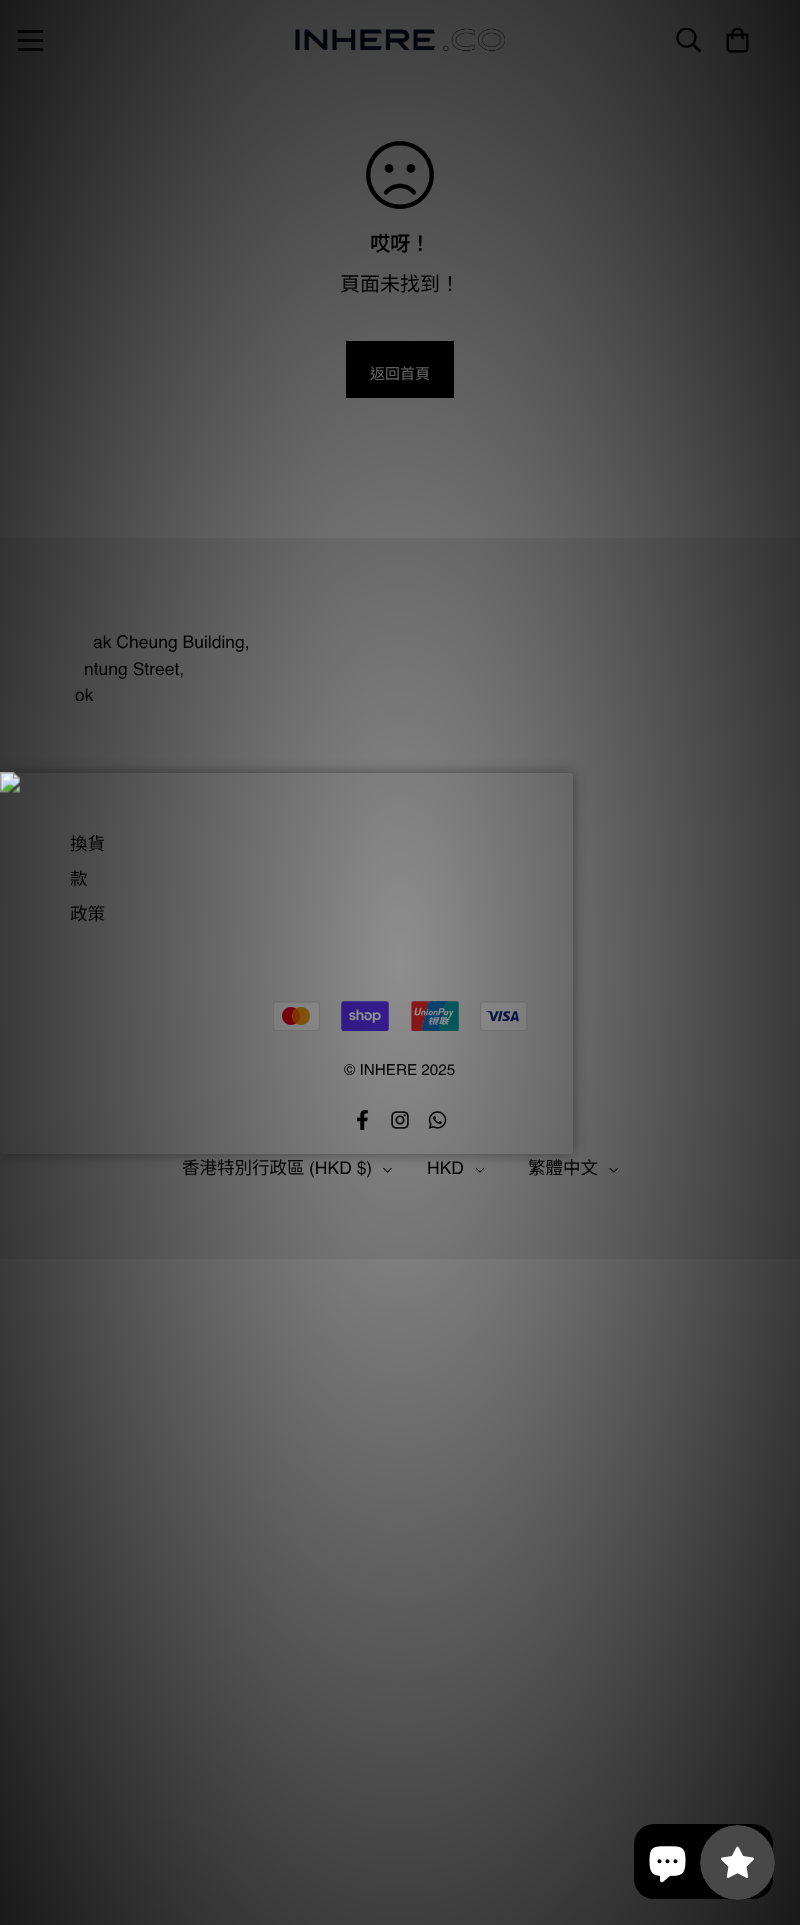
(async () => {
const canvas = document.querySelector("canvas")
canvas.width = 800
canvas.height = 1925
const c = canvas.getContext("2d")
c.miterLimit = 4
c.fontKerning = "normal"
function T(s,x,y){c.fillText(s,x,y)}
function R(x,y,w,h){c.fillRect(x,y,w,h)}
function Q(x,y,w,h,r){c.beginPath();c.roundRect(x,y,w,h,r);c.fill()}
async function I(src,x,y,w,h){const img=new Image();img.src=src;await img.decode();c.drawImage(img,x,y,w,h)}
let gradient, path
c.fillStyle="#fff"
R(0,0,800,1925)
c.fillStyle="#222"
R(18,39,25,3)
R(18,30,25,3)
R(18,48,25,3)
await I("2.png",295,28,210,24)
await I("3.png",676,28,25,25)
await I("4.png",726,28,23,25)
await I("5.png",366,141,68,68)
c.font="bold 20px Noto Sans CJK TC"
c.fillStyle="#000"
T("哎呀！",370,251)
c.font="20px Noto Sans CJK TC"
T("頁面未找到！",340,291)
R(346,341,108,57)
c.font="15px Noto Sans CJK TC"
c.fillStyle="#fff"
T("返回首頁",370,379)
c.fillStyle="#ededed"
R(0,538,800,721)
c.font="17.5px Helvetica"
c.fillStyle="#000"
T("ak Cheung Building,",93,648)
T("ntung Street,",84,675)
T("ok",75,701)
c.font="17.5px Noto Sans CJK TC"
T("換貨",70,850)
T("款",70,885)
T("政策",70,920)
await I("6.png",273,1001,47,30)
await I("7.png",341,1001,48,30)
await I("8.png",411,1001,48,30)
await I("9.png",480,1001,48,30)
c.font="15.25px Helvetica"
T("© INHERE 2025",344,1075)
await I("10.png",357,1110,11,20)
await I("11.png",391,1111,18,18)
await I("12.png",428,1111,19,18)
c.font="17.5px Noto Sans CJK TC"
T("香港特別行政區",182,1174)
c.font="17.5px Helvetica"
T("(HKD $)",309,1174)
await I("13.png",383,1167,9,6)
T("HKD",427,1174)
await I("14.png",475,1167,10,6)
c.font="17.5px Noto Sans CJK TC"
T("繁體中文",528,1174)
await I("15.png",609,1167,9,6)
gradient = c.createRadialGradient(400,400.48,0,400,400.48,566)
gradient.addColorStop(0,"#00000066")
gradient.addColorStop(1,"#000000e6")
c.fillStyle = gradient
c.beginPath()
c.rect(0,0,800,1925)
c.save()
c.clip()
c.scale(1,1361 / 566)
c.fillRect(0,0,800,801)
c.restore()
c.save()
path = new Path2D("M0 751h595v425h-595zm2.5 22h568c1.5 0 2.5 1 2.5 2.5v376c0 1.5-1 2.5-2.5 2.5h-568c-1.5 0-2.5-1-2.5-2.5v-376c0-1.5 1-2.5 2.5-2.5z")
c.clip(path,"evenodd")
c.fillStyle="#00000066"
c.filter="blur(7px)"
c.beginPath()
c.roundRect(0,773,573,381,2.5)
c.fill()
c.filter="none"
c.restore()
await I("1.png",0,772,572,21)
c.fillStyle="#000"
Q(634,1824,139,75,20)
await I("16.png",649,1846,37,37)
await I("17.png",700,1825,75,75)
})()
